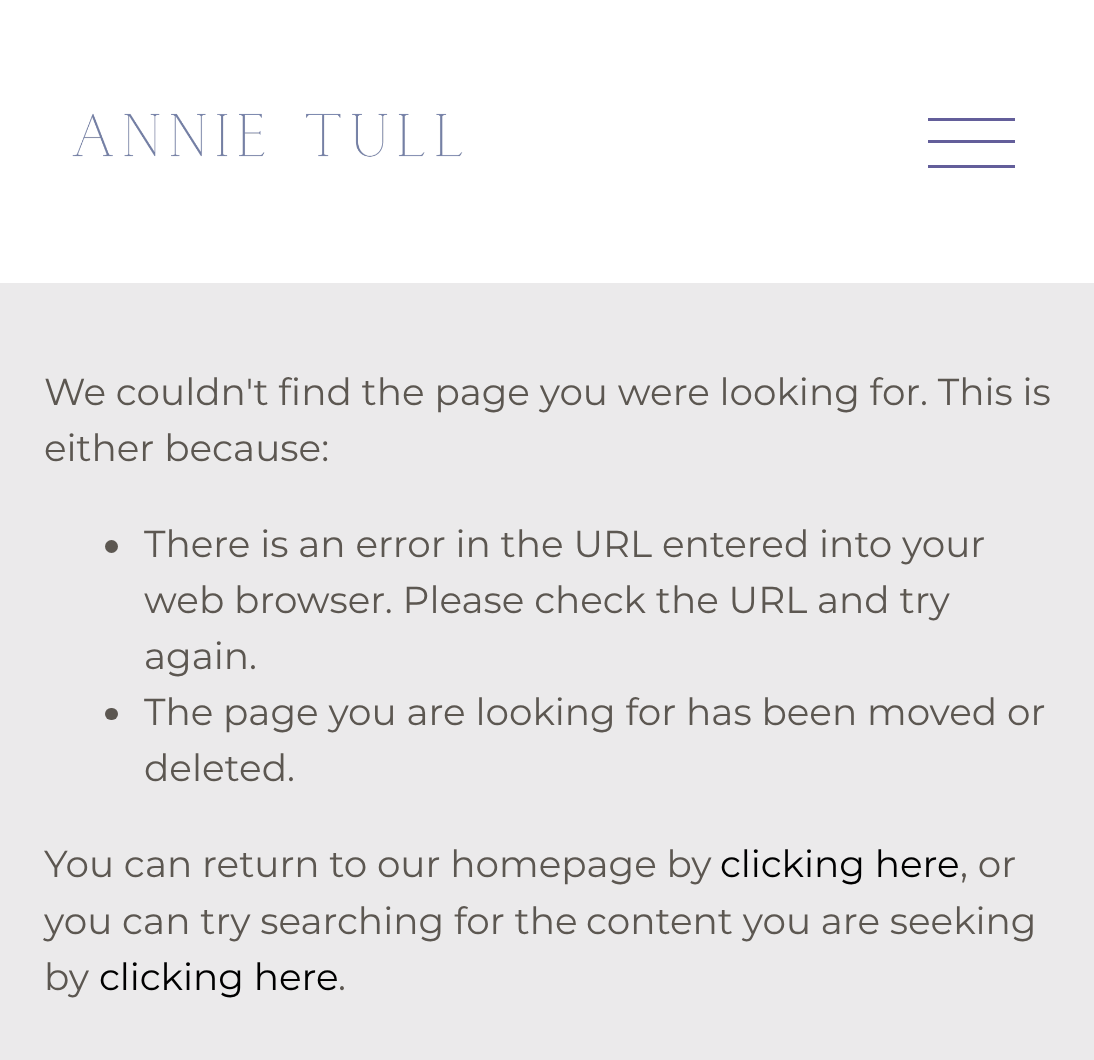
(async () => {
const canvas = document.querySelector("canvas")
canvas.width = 1094
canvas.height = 1060
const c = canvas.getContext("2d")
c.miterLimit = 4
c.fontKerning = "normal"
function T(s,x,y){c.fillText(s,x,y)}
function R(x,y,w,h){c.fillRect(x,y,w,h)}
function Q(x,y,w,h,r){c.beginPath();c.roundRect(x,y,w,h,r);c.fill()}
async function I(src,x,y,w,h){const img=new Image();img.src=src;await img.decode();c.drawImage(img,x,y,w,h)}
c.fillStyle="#ebeaeb"
R(0,0,1094,1060)
c.fillStyle="#fff"
R(0,0,1094,283)
await I("1.png",72,113,391,44)
c.fillStyle="#635e9a"
R(928,118,87,3)
R(928,140,87,3)
R(928,165,87,3)
c.font="37.4px Montserrat"
c.fillStyle="#5c5751"
T("We couldn't find the page you were looking for. This is",44,405)
T("either because:",44,461)
c.beginPath()
c.arc(111.5,546.5,6.5,0,7)
c.fill()
T("There is an error in the URL entered into your",144,557)
T("web browser. Please check the URL and try",144,613)
T("again.",144,669)
Q(105,708,13,12,6)
T("The page you are looking for has been moved or",144,725)
T("deleted.",144,781)
T("You can return to our homepage by",44,877)
c.fillStyle="#000"
T("clicking here",720,877)
c.fillStyle="#5c5751"
T(", or",960,877)
T("you can try searching for the",44,934)
T("content you are seeking",586,934)
T("by",44,990)
c.fillStyle="#000"
T("clicking here",99,990)
c.fillStyle="#5c5751"
T(".",338,990)
})()
